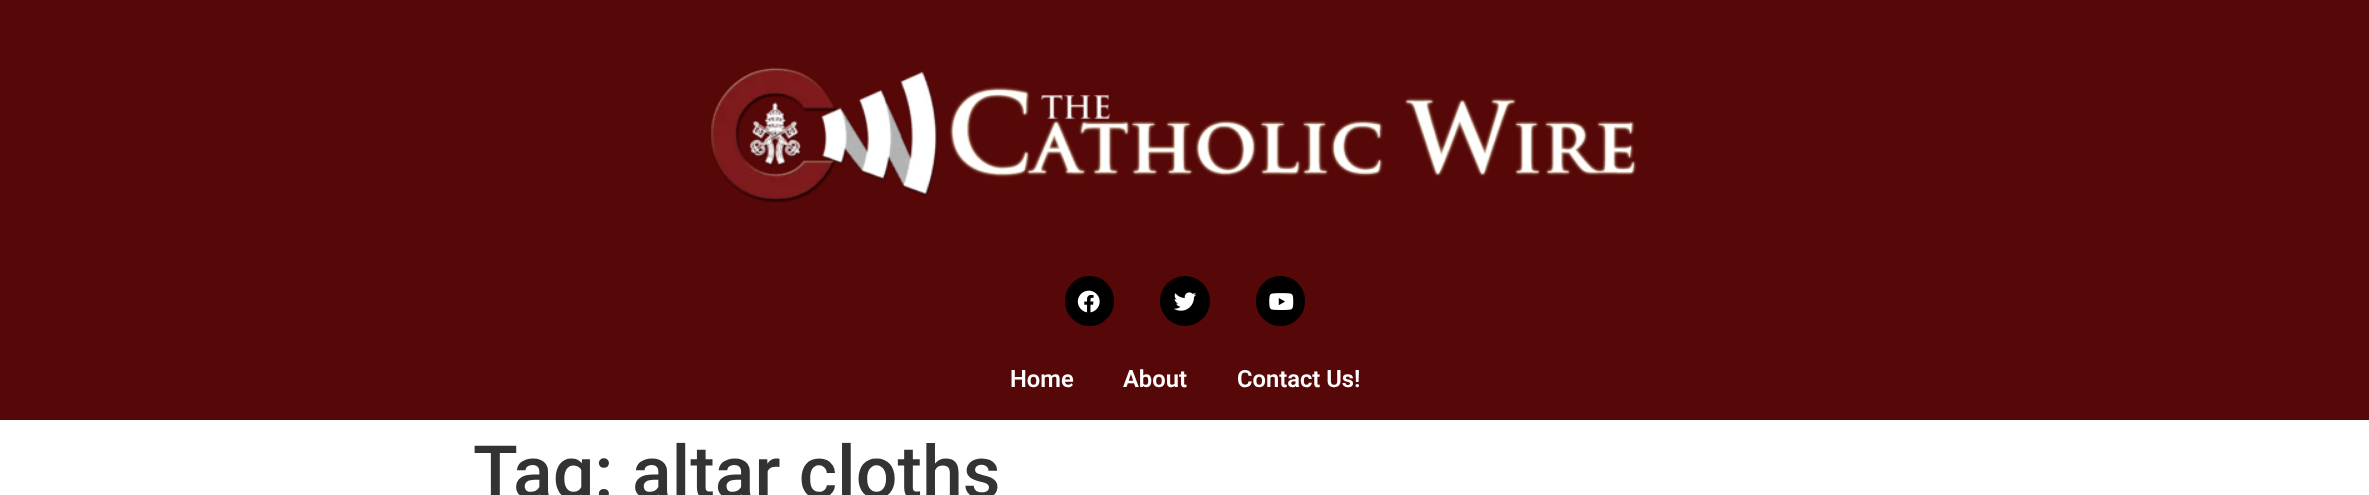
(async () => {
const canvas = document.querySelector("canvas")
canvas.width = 2369
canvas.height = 495
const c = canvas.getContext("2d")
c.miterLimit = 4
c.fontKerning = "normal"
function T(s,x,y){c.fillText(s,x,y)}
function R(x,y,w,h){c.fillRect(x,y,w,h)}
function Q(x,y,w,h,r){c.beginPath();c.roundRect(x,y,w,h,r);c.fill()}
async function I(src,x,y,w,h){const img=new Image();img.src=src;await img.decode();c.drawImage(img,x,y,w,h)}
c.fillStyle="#fff"
R(0,0,2369,495)
c.fillStyle="#560707"
R(0,0,2369,420)
await I("1.png",711,67,926,136)
c.fillStyle="#000"
Q(1065,276,49,50,24.5)
await I("2.png",1077,290,23,23)
c.beginPath()
c.arc(1185,301,25,0,7)
c.fill()
await I("3.png",1174,292,23,19)
Q(1256,276,49,50,24.5)
await I("4.png",1269,293,25,17)
c.font="600 23.75px Roboto"
c.fillStyle="#fff"
T("Home",1010,387)
T("About",1123,387)
T("Contact Us!",1237,387)
c.font="500 73.5px Roboto"
c.fillStyle="#333"
T("Tag: altar cloths",473,498)
})()
